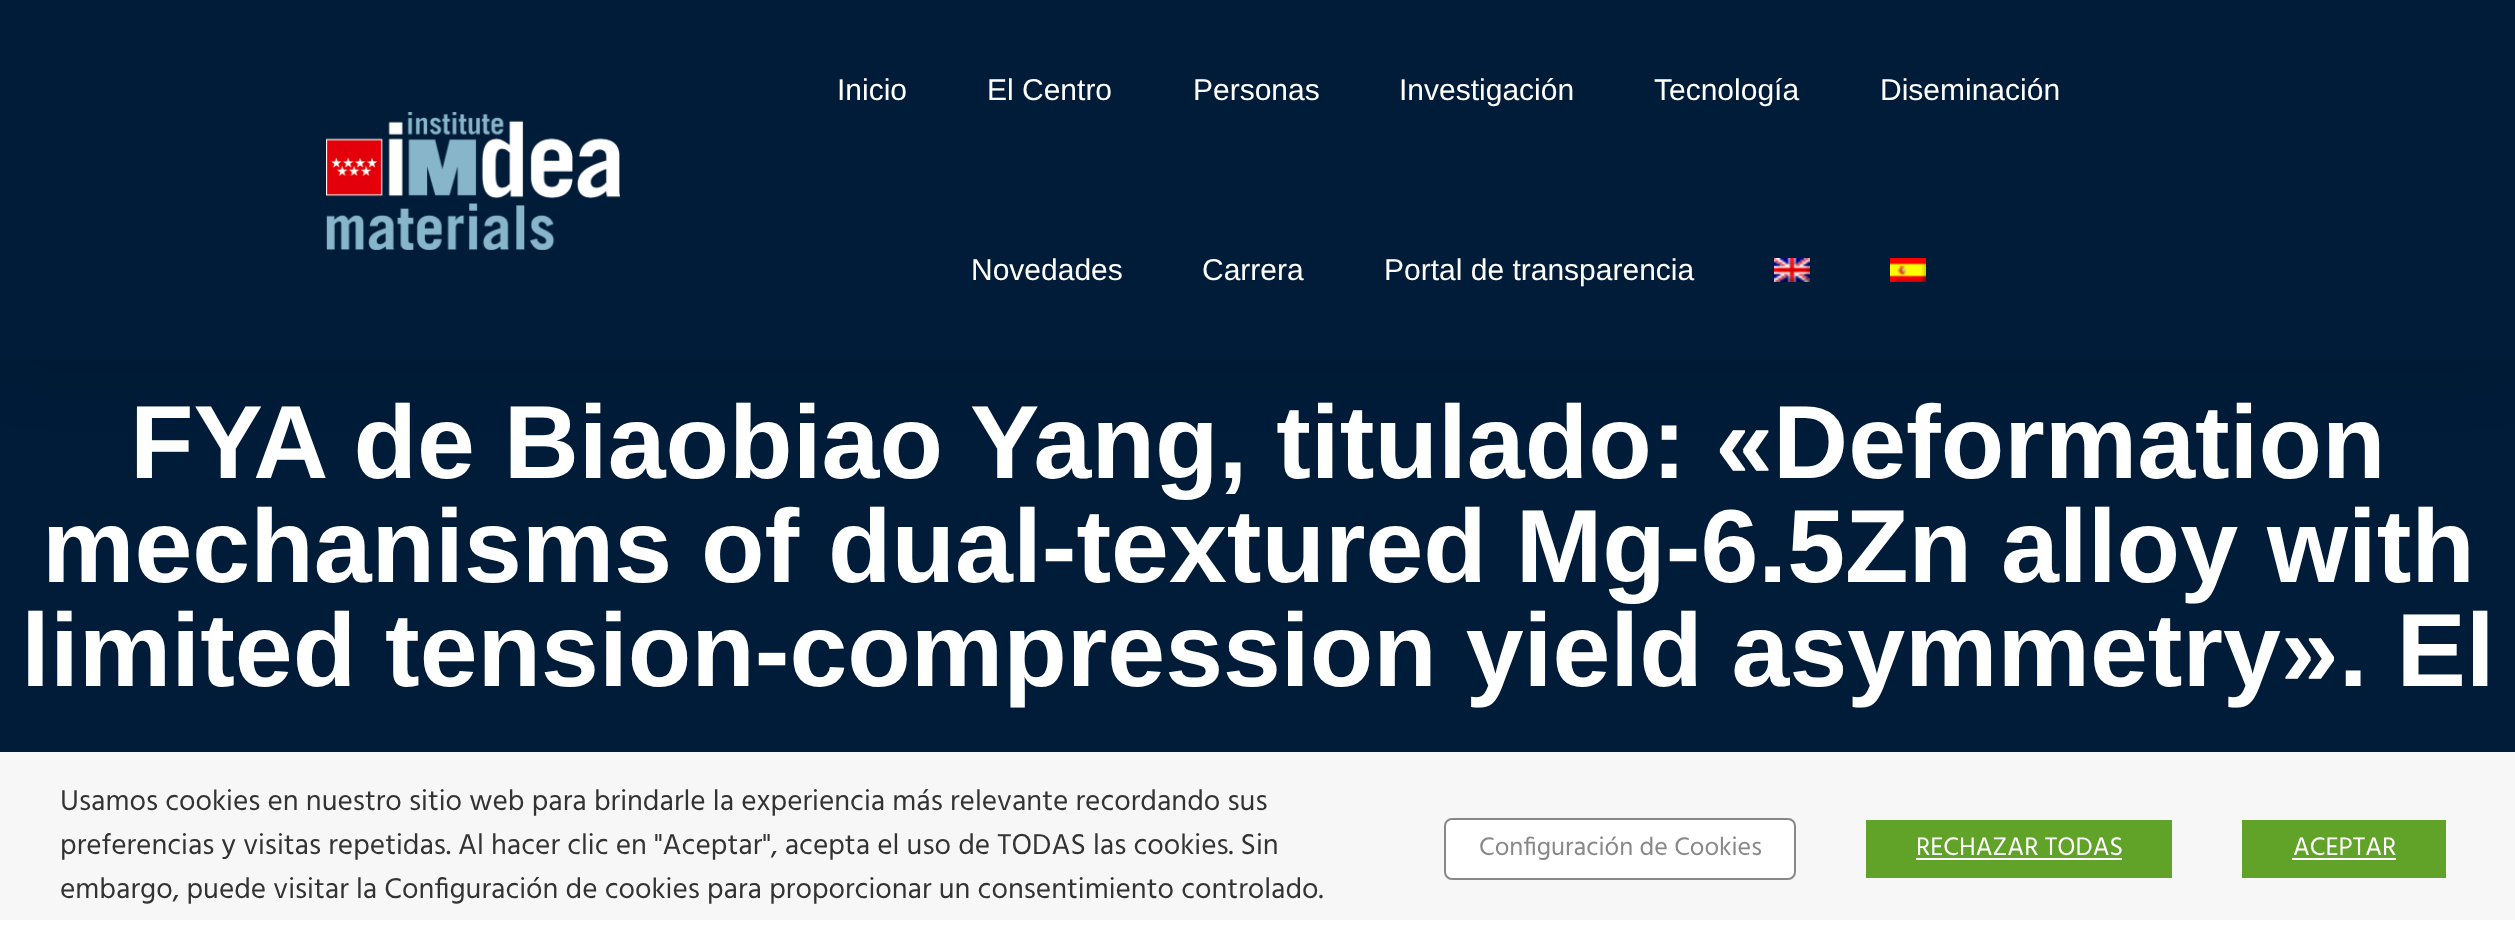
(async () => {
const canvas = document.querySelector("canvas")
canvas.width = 2515
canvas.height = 943
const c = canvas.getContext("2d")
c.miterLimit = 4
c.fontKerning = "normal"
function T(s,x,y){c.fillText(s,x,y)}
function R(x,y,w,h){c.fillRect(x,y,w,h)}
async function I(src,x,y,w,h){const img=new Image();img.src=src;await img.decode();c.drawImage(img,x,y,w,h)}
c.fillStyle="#fff"
R(0,0,2515,943)
c.fillStyle="#001c38"
R(0,360,2515,560)
c.fillStyle="#0000001a"
c.filter="blur(38px)"
c.beginPath()
c.rect(0,0,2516,360)
c.fill()
c.filter="none"
c.fillStyle="#001c38"
R(0,0,2515,360)
await I("1.png",326,112,294,138)
c.font="30px Liberation Sans"
c.fillStyle="#fff"
T("Inicio",837,100)
T("El Centro",987,100)
T("Personas",1193,100)
T("Investigación",1399,100)
T("Tecnología",1654,100)
T("Diseminación",1880,100)
T("Novedades",971,280)
T("Carrera",1202,280)
T("Portal de transparencia",1384,280)
await I("2.png",1774,258,36,24)
await I("3.png",1890,258,36,24)
c.font="bold 104px Liberation Sans"
T("FYA de Biaobiao Yang, titulado: «Deformation",130,478)
T("mechanisms of dual-textured Mg-6.5Zn alloy with",42,582)
T("limited tension-compression yield asymmetry». El",21,686)
c.fillStyle="#fffffff7"
R(0,752,2515,168)
c.font="29.35px Hind"
c.fillStyle="#333"
T("Usamos cookies en nuestro sitio web para brindarle la experiencia más relevante recordando sus",60,810)
T("preferencias y visitas repetidas. Al hacer clic en \"Aceptar\", acepta el uso de TODAS las cookies. Sin",60,854)
T("embargo, puede visitar la Configuración de cookies para proporcionar un consentimiento controlado.",60,898)
c.fillStyle="#fff"
c.beginPath()
c.roundRect(1445,819,350,60,7)
c.fill()
c.strokeStyle="#898888"
c.lineWidth=2
c.stroke()
c.font="26px Hind"
c.fillStyle="#898888"
T("Configuración de Cookies",1479,855)
c.fillStyle="#61a229"
R(1866,820,306,58)
c.fillStyle="#fff"
T("RECHAZAR TODAS",1916,855)
R(1916,858,206,2)
c.fillStyle="#61a229"
R(2242,820,204,58)
c.fillStyle="#fff"
T("ACEPTAR",2293,855)
R(2292,858,104,2)
})()
